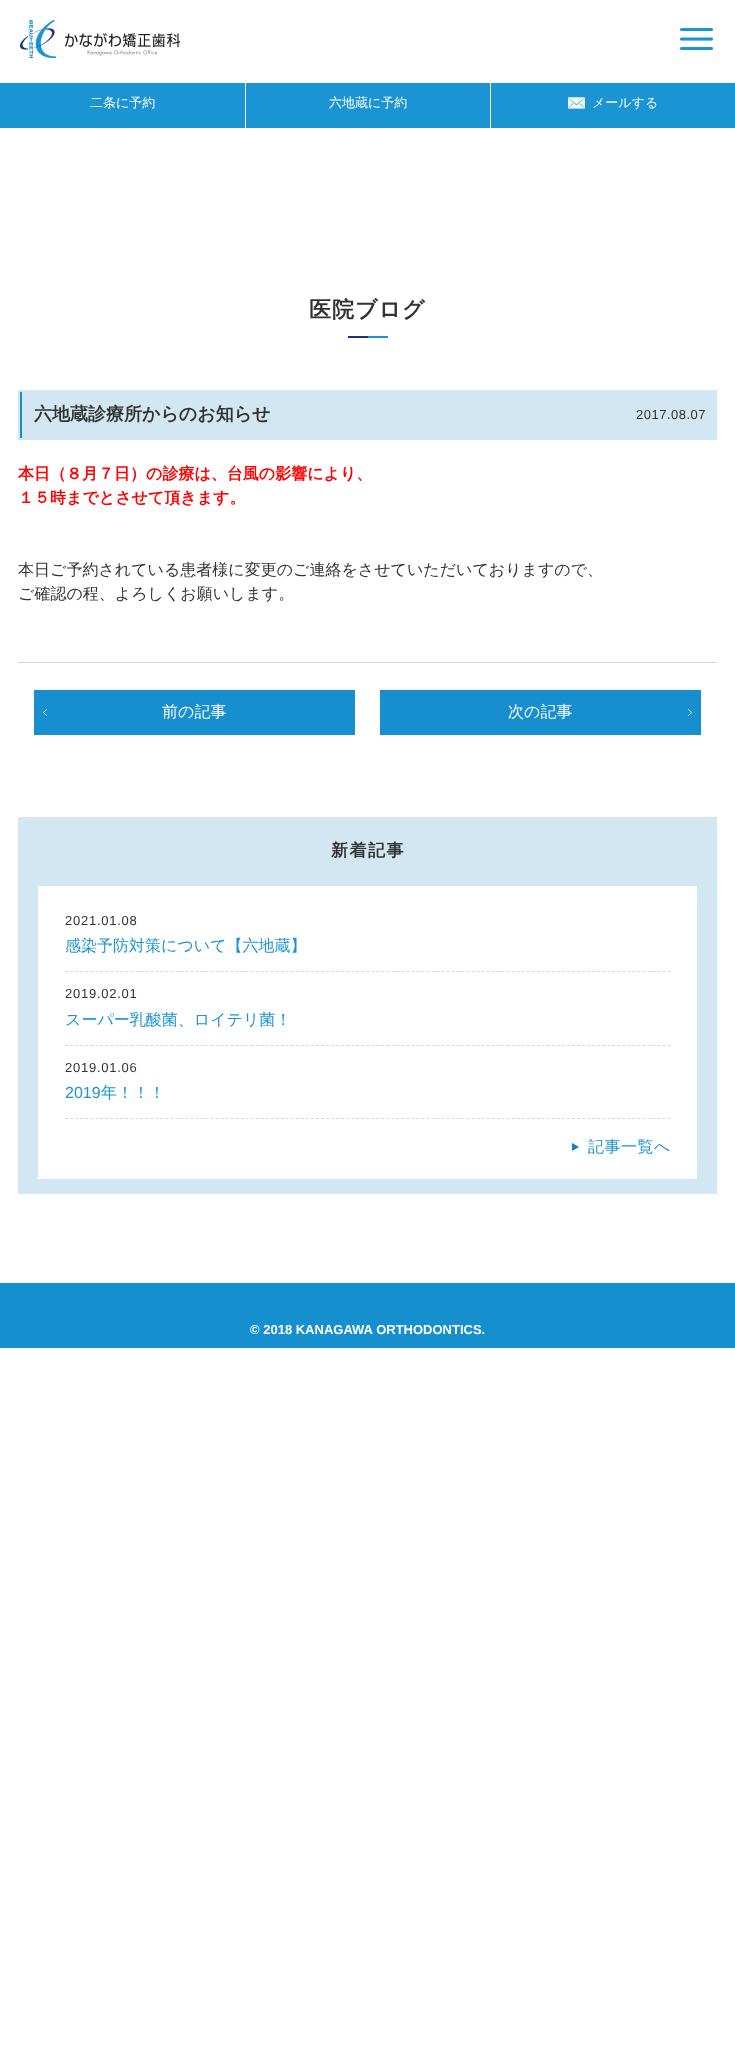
(async () => {
const canvas = document.querySelector("canvas")
canvas.width = 735
canvas.height = 2066
const c = canvas.getContext("2d")
c.miterLimit = 4
c.fontKerning = "normal"
function T(s,x,y){c.fillText(s,x,y)}
function R(x,y,w,h){c.fillRect(x,y,w,h)}
async function I(src,x,y,w,h){const img=new Image();img.src=src;await img.decode();c.drawImage(img,x,y,w,h)}
let path
c.fillStyle="#fff"
R(0,0,735,2066)
await I("1.png",20,20,160,38)
await I("2.png",680,28,33,22)
c.fillStyle="#1a94d3"
R(0,83,735,45)
c.font="500 13px WenQuanYi Zen Hei"
c.fillStyle="#fff"
T("二条に予約",90,107)
R(245,78,1,50)
T("六地蔵に予約",329,107)
R(490,78,1,50)
await I("3.png",568,97,17,12)
T("メールする",592,107)
await I("4.png",348,336,40,2)
c.letterSpacing="1px"
c.font="bold 22px WenQuanYi Zen Hei"
c.fillStyle="#323232"
T("医院ブログ",309,317)
c.fillStyle="#d2e7f2"
R(18,390,699,50)
c.fillStyle="#178ecd"
R(20,392,2,46)
c.letterSpacing="0px"
c.font="bold 18px WenQuanYi Zen Hei"
c.fillStyle="#323232"
T("六地蔵診療所からのお知らせ",34,420)
c.letterSpacing="0.5px"
c.font="13px Liberation Sans"
T("2017.08.07",636,419)
c.fillStyle="#d8d8d8"
R(18,662,699,1)
c.letterSpacing="0px"
c.font="bold 16px WenQuanYi Zen Hei"
c.fillStyle="#f00"
T("本日（８月７日）の診療は、台風の影響により、",18,479)
T("１５時までとさせて頂きます。",18,503)
c.font="500 16px WenQuanYi Zen Hei"
c.fillStyle="#323232"
T("本日ご予約されている患者様に変更のご連絡をさせていただいておりますので、",18,575)
T("ご確認の程、よろしくお願いします。",18,599)
c.fillStyle="#178ecd"
R(34,690,321,45)
await I("5.png",43,709,4,7)
c.fillStyle="#fff"
T("前の記事",162,717)
c.fillStyle="#178ecd"
R(380,690,321,45)
await I("6.png",688,709,4,7)
c.fillStyle="#fff"
T("次の記事",508,717)
c.fillStyle="#d2e7f2"
R(18,817,699,377)
c.letterSpacing="1.5px"
c.font="bold 17px WenQuanYi Zen Hei"
c.fillStyle="#323232"
T("新着記事",331,856)
c.fillStyle="#fff"
R(38,886,659,293)
c.letterSpacing="0.75px"
c.font="13px Liberation Sans"
c.fillStyle="#323232"
T("2021.01.08",65,925)
path = new Path2D("M65 971.5h605")
c.strokeStyle="#d8d8d8"
c.setLineDash([3,2.02])
c.stroke(path)
c.letterSpacing="0px"
c.font="500 16px WenQuanYi Zen Hei"
c.fillStyle="#1b94d3"
T("感染予防対策について【六地蔵】",65,951)
c.letterSpacing="0.75px"
c.font="13px Liberation Sans"
c.fillStyle="#323232"
T("2019.02.01",65,998)
path = new Path2D("M65 1045.5h605")
c.stroke(path)
c.letterSpacing="0px"
c.font="500 16px WenQuanYi Zen Hei"
c.fillStyle="#1b94d3"
T("スーパー乳酸菌、ロイテリ菌！",65,1025)
c.letterSpacing="0.75px"
c.font="13px Liberation Sans"
c.fillStyle="#323232"
T("2019.01.06",65,1072)
path = new Path2D("M65 1118.5h605")
c.stroke(path)
c.letterSpacing="0px"
c.font="16px Liberation Sans"
c.fillStyle="#1b94d3"
T("2019",65,1098)
c.font="500 16px WenQuanYi Zen Hei"
T("年！！！",101,1098)
await I("7.png",572,1143,7,8)
c.letterSpacing="0.5px"
T("記事一覧へ",588,1152)
c.fillStyle="#158fce"
R(0,1283,735,65)
c.letterSpacing="0px"
c.font="bold 13px Liberation Sans"
c.fillStyle="#fff"
T("© 2018 KANAGAWA ORTHODONTICS.",250,1334)
})()
